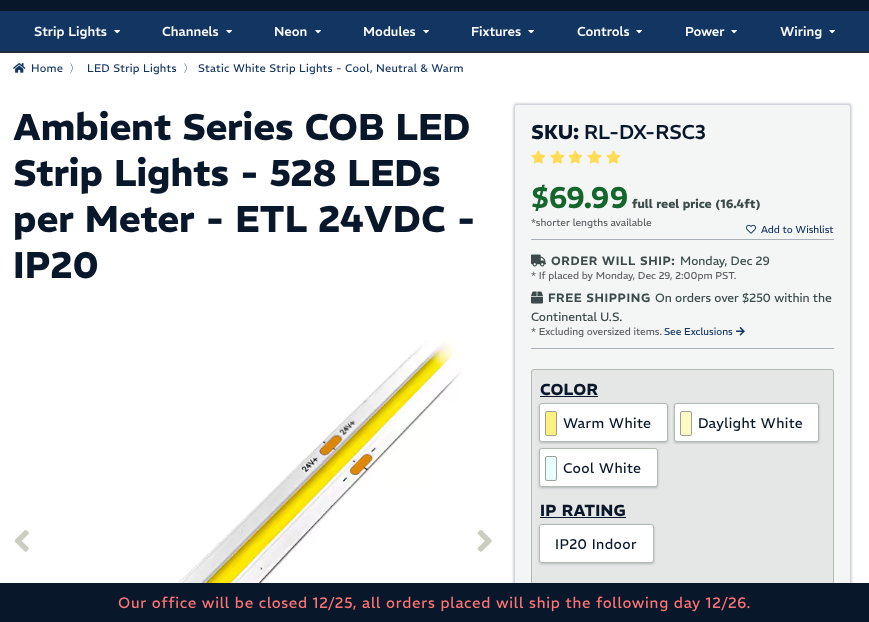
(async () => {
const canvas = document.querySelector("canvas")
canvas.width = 869
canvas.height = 622
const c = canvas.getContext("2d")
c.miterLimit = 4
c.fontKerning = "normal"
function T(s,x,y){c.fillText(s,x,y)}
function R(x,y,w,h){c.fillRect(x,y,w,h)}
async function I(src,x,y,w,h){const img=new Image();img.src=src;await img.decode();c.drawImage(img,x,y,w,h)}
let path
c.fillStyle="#fff"
R(0,0,869,622)
c.fillStyle="#133562"
R(0,11,869,40)
c.fillStyle="#08172a"
R(0,0,869,11)
c.fillStyle="#242f3d"
R(0,51,869,2)
c.font="500 13px REM"
c.fillStyle="#fafcff"
T("Strip Lights",34,36)
await I("1.png",114,30,6,4)
T("Channels",162,36)
await I("1.png",226,30,6,4)
T("Neon",274,36)
await I("1.png",315,30,6,4)
T("Modules",363,36)
await I("1.png",423,30,6,4)
T("Fixtures",471,36)
await I("1.png",528,30,6,4)
T("Controls",577,36)
await I("1.png",636,30,6,4)
T("Power",685,36)
await I("1.png",731,30,6,4)
T("Wiring",780,36)
await I("1.png",829,30,6,4)
await I("2.png",13,63,13,10)
c.letterSpacing="0.25px"
c.font="11px REM"
c.fillStyle="#133562"
T("Home",31,72)
c.font="500 11px WenQuanYi Zen Hei"
T("〉",69,72)
c.font="11px REM"
T("LED Strip Lights",87,72)
c.font="500 11px WenQuanYi Zen Hei"
T("〉",183,72)
c.font="11px REM"
T("Static White Strip Lights - Cool, Neutral & Warm",198,72)
c.letterSpacing="0px"
c.font="bold 37px REM"
c.fillStyle="#08172a"
T("Ambient Series COB LED",13,140)
T("Strip Lights - 528 LEDs",13,186)
T("per Meter - ETL 24VDC -",13,232)
T("IP20",13,278)
await I("3.png",14,530,15,22)
await I("4.png",138,340,324,243)
await I("5.png",477,530,15,22)
c.fillStyle="#08172a54"
c.filter="blur(1.5px)"
c.beginPath()
c.roundRect(514,104,337,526,3)
c.fill()
c.filter="none"
c.fillStyle="#f4f6f5"
c.beginPath()
c.roundRect(514.5,104.5,336,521,2.5)
c.fill()
c.strokeStyle="#d2d5d9"
c.stroke()
c.font="bold 20px REM"
c.fillStyle="#08172a"
T("SKU:",531,139)
c.font="500 20px REM"
T("RL-DX-RSC3",584,139)
await I("6.png",531,150,15,14)
await I("6.png",550,150,15,14)
await I("6.png",568,150,15,14)
await I("6.png",587,150,15,14)
await I("6.png",606,150,15,14)
c.font="600 30px REM"
c.fillStyle="#14662c"
T("$69.99",531,208)
c.font="bold 12px REM"
c.fillStyle="#3b4a4a"
T("full reel price (16.4ft)",632,208)
c.font="10px REM"
c.fillStyle="#5b5f61"
T("*shorter lengths available",531,226)
await I("7.png",746,224,10,10)
c.fillStyle="#133562"
T("Add to Wishlist",761,233)
c.fillStyle="#a9b0b8"
R(531,239,303,1)
R(531,348,303,1)
await I("8.png",531,254,15,13)
c.letterSpacing="0.6px"
c.font="600 12px REM"
c.fillStyle="#3b4a4a"
T("ORDER WILL SHIP:",551,265)
c.letterSpacing="0px"
c.font="12px REM"
T("Monday, Dec 29",680,265)
c.font="10px REM"
c.fillStyle="#5b5f61"
T("* If placed by Monday, Dec 29, 2:00pm PST.",531,279)
await I("9.png",531,291,12,13)
c.letterSpacing="0.6px"
c.font="600 12px REM"
c.fillStyle="#3b4a4a"
T("FREE SHIPPING",548,302)
c.letterSpacing="0px"
c.font="12px REM"
T("On orders over $250 within the",655,302)
T("Continental U.S.",531,321)
c.font="10px REM"
c.fillStyle="#5b5f61"
T("* Excluding oversized items.",531,335)
c.fillStyle="#133562"
T("See Exclusions",664,335)
await I("10.png",736,327,9,9)
c.fillStyle="#e5e6e6"
c.beginPath()
c.roundRect(531.5,369.5,302,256,2.5)
c.fill()
c.strokeStyle="#b1bbb1"
c.stroke()
c.letterSpacing="0.25px"
c.font="bold 16px REM"
c.fillStyle="#08172a"
T("COLOR",540,395)
R(540,396,58,1)
c.fillStyle="#fff"
R(540,404,127,37)
c.fillStyle="#fff17f"
c.beginPath()
c.roundRect(545.5,411.5,11,24,1.5)
c.fill()
c.strokeStyle="#9da094"
c.stroke()
c.save()
path = new Path2D("M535 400h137v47h-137zm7 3h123c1.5 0 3 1.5 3 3v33c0 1.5-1.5 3-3 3h-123c-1.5 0-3-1.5-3-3v-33c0-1.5 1.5-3 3-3z")
c.clip(path,"evenodd")
c.fillStyle="#08172a3d"
c.filter="blur(1px)"
c.beginPath()
c.roundRect(539,404,129,39,3)
c.fill()
c.filter="none"
c.restore()
c.beginPath()
c.roundRect(539.5,403.5,128,38,2.5)
c.strokeStyle="#b1bbb1"
c.stroke()
c.letterSpacing="0.4px"
c.font="14px REM"
c.fillStyle="#08172a"
T("Warm White",563,428)
c.fillStyle="#fff"
R(675,404,143,37)
c.fillStyle="#fbfcc5"
c.beginPath()
c.roundRect(680.5,411.5,11,24,1.5)
c.fill()
c.strokeStyle="#9da094"
c.stroke()
c.save()
path = new Path2D("M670 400h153v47h-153zm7 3h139c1.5 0 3 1.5 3 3v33c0 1.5-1.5 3-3 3h-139c-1.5 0-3-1.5-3-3v-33c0-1.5 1.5-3 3-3z")
c.clip(path,"evenodd")
c.fillStyle="#08172a3d"
c.filter="blur(1px)"
c.beginPath()
c.roundRect(674,404,145,39,3)
c.fill()
c.filter="none"
c.restore()
c.beginPath()
c.roundRect(674.5,403.5,144,38,2.5)
c.strokeStyle="#b1bbb1"
c.stroke()
c.fillStyle="#08172a"
T("Daylight White",698,428)
c.fillStyle="#fff"
R(540,449,117,37)
c.fillStyle="#e7ffff"
c.beginPath()
c.roundRect(545.5,456.5,11,24,1.5)
c.fill()
c.strokeStyle="#9da094"
c.stroke()
c.save()
path = new Path2D("M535 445h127v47h-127zm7 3h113c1.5 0 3 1.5 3 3v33c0 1.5-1.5 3-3 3h-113c-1.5 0-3-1.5-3-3v-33c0-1.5 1.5-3 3-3z")
c.clip(path,"evenodd")
c.fillStyle="#08172a3d"
c.filter="blur(1px)"
c.beginPath()
c.roundRect(539,449,119,39,3)
c.fill()
c.filter="none"
c.restore()
c.beginPath()
c.roundRect(539.5,448.5,118,38,2.5)
c.strokeStyle="#b1bbb1"
c.stroke()
c.fillStyle="#08172a"
T("Cool White",563,473)
c.letterSpacing="0.25px"
c.font="bold 16px REM"
T("IP RATING",540,516)
R(540,517,86,1)
c.fillStyle="#fff"
R(540,525,113,37)
c.save()
path = new Path2D("M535 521h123v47h-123zm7 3h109c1.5 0 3 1.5 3 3v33c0 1.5-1.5 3-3 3h-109c-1.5 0-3-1.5-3-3v-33c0-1.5 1.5-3 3-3z")
c.clip(path,"evenodd")
c.fillStyle="#08172a3d"
c.filter="blur(1px)"
c.beginPath()
c.roundRect(539,525,115,39,3)
c.fill()
c.filter="none"
c.restore()
c.beginPath()
c.roundRect(539.5,524.5,114,38,2.5)
c.stroke()
c.letterSpacing="0.4px"
c.font="14px REM"
c.fillStyle="#08172a"
T("IP20 Indoor",555,549)
R(0,583,869,39)
c.letterSpacing="0.75px"
c.font="15px REM"
c.fillStyle="#ff7474"
T("Our office will be closed 12/25, all orders placed will ship the following day 12/26.",118,608)
})()
